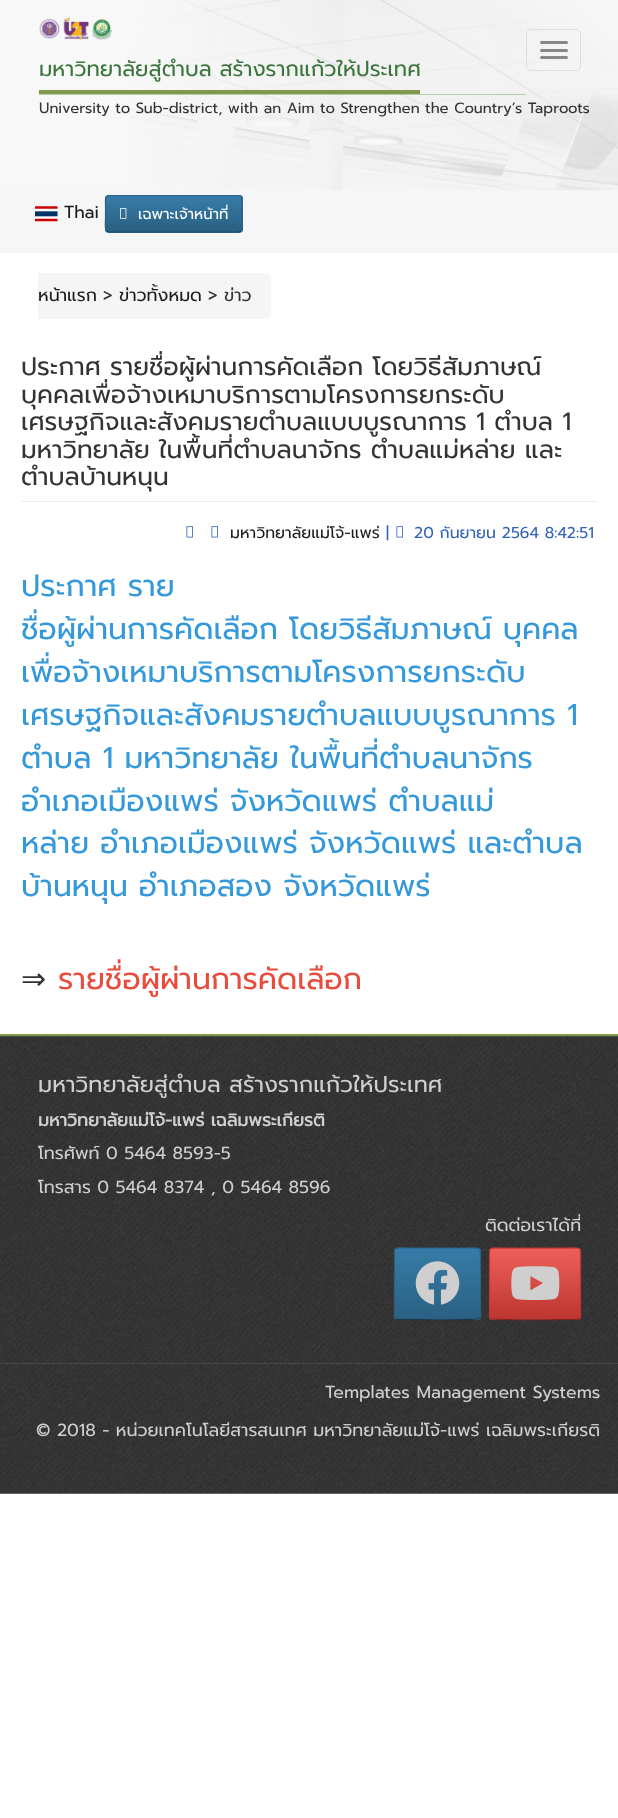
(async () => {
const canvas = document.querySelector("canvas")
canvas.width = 618
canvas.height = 1818
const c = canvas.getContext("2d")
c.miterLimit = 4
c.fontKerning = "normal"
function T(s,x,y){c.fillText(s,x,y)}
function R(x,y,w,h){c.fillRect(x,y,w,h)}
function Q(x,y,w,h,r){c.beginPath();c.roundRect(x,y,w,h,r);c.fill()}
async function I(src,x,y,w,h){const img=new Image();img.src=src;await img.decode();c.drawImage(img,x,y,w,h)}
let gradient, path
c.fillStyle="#fff"
R(0,0,618,1818)
c.fillStyle="#f8f8f8"
R(0,0,618,190)
await I("1.png",129,0,489,190)
c.beginPath()
c.roundRect(526.5,29.5,54,41,4.5)
c.strokeStyle="#ddd"
c.stroke()
c.fillStyle="#888"
Q(540,41,28,3,1.5)
Q(540,49,28,3,1.5)
Q(540,56,28,3,1.5)
await I("2.png",39,17,73,23)
c.fillStyle="#2c71024d"
R(39,94,487,1)
c.font="21.25px Prompt"
c.fillStyle="#3c763d"
T("มหาวิทยาลัยสู่ตําบล สร้างรากแก้วให้ประเทศ",39,76)
c.fillStyle="#81994d"
R(39,90,381,4)
c.font="14.9px Prompt"
c.fillStyle="#333"
T("University to Sub-district, with an Aim to Strengthen the Country’s Taproots",39,113)
c.fillStyle="#f6f6f6"
R(0,190,618,63)
await I("3.png",35,206,23,16)
c.font="17.5px Prompt"
c.fillStyle="#1a1d1b"
T("Thai",64,218)
c.fillStyle="#337ab7"
Q(105,195,138,38,4)
c.save()
c.beginPath()
c.roundRect(105,195,138,38,4)
c.clip()
gradient = c.createLinearGradient(174,196,174,231)
gradient.addColorStop(0,"#377ca8")
gradient.addColorStop(1,"#2a6082")
c.fillStyle = gradient
R(105,196,138,35)
c.restore()
path = new Path2D("M241 231l-2 1h-130l-2.5-1")
c.strokeStyle="#183548"
c.lineWidth=1.2
c.stroke(path)
path = new Path2D("M106.5 231c-2-2.5-1-9.5-1-12v-15c0-2.5-1-8.5 3.5-8.5h130c4 0 3 6 3 8.5v15c0 2.5 1 9.5-1 12")
c.strokeStyle="#2a6082"
c.stroke(path)
await I("4.png",120,208,7,11)
c.font="15px Prompt"
c.fillStyle="#fff"
T("เฉพาะเจ้าหน้าที่",138,219)
c.fillStyle="#f5f5f5"
R(38,273,215,46)
c.font="17.5px Prompt"
c.fillStyle="#1a1d1b"
T("หน้าแรก",38,301)
c.fillStyle="#333"
T(">",103,301)
c.fillStyle="#1a1d1b"
T("ข่าวทั้งหมด",119,301)
c.fillStyle="#333"
T("> ข่าว",208,301)
c.fillStyle="#f5f5f5"
c.beginPath()
c.roundRect(253,273,18,46,[0,5,5,0])
c.fill()
c.fillStyle="#eee"
R(21,501,577,1)
c.font="25px Prompt"
c.fillStyle="#333"
T("ประกาศ รายชื่อผู้ผ่านการคัดเลือก โดยวิธีสัมภาษณ์",21,375)
T("บุคคลเพื่อจ้างเหมาบริการตามโครงการยกระดับ",21,403)
T("เศรษฐกิจและสังคมรายตำบลแบบบูรณาการ 1 ตำบล 1",21,430)
T("มหาวิทยาลัย ในพื้นที่ตำบลนาจักร ตำบลแม่หล่าย และ",21,458)
T("ตำบลบ้านหนุน",21,485)
await I("5.png",186,526,7,12)
await I("5.png",211,526,7,12)
c.font="15.75px Prompt"
c.fillStyle="#1a1d1b"
T("มหาวิทยาลัยแม่โจ้-แพร่",230,538)
c.fillStyle="#3464b7"
T("|",386,538)
await I("5.png",396,526,7,12)
T("20 กันยายน 2564 8:42:51",414,538)
c.font="30px Prompt"
c.fillStyle="#3498db"
T("ประกาศ ราย",21,596)
T("ชื่อผู้ผ่านการคัดเลือก โดยวิธีสัมภาษณ์ บุคคล",21,639)
T("เพื่อจ้างเหมาบริการตามโครงการยกระดับ",21,682)
T("เศรษฐกิจและสังคมรายตำบลแบบบูรณาการ 1",21,725)
T("ตำบล 1 มหาวิทยาลัย ในพื้นที่ตำบลนาจักร",21,768)
T("อำเภอเมืองแพร่ จังหวัดแพร่ ตำบลแม่",21,811)
T("หล่าย อำเภอเมืองแพร่ จังหวัดแพร่ และตำบล",21,853)
T("บ้านหนุน อำเภอสอง จังหวัดแพร่",21,896)
c.font="30px DejaVu Sans"
c.fillStyle="#333"
T("⇒",21,989)
c.font="30px Prompt"
c.fillStyle="#e74c3c"
T("รายชื่อผู้ผ่านการคัดเลือก",58,989)
c.fillStyle="#81994d"
R(0,1034,618,3)
await I("6.png",0,1036,618,458)
c.font="22.5px Prompt"
c.fillStyle="#cfcfcf"
T("มหาวิทยาลัยสู่ตําบล สร้างรากแก้วให้ประเทศ",38,1092)
c.font="bold 17.5px Prompt"
T("มหาวิทยาลัยแม่โจ้-แพร่ เฉลิมพระเกียรติ",38,1126)
c.font="17.5px Prompt"
T("โทรศัพท์ 0 5464 8593-5",38,1159)
T("โทรสาร 0 5464 8374 , 0 5464 8596",38,1193)
T("ติดต่อเราได้ที่",485,1231)
c.fillStyle="#337ab7"
Q(394,1248,87,72,4)
c.save()
c.beginPath()
c.roundRect(394,1248,87,72,4)
c.clip()
gradient = c.createLinearGradient(438,1249,438,1319)
gradient.addColorStop(0,"#377ca8")
gradient.addColorStop(1,"#2a6082")
c.fillStyle = gradient
R(394,1249,87,70)
c.restore()
path = new Path2D("M479.5 1318.5c-2 2-61 1-68.5 1h-13.5l-2-1")
c.strokeStyle="#183548"
c.stroke(path)
path = new Path2D("M395.5 1318.5l-1-2.5v-54c0-17-2-14 16.5-14h53c18.5 0 16.5-3 16.5 14v54l-1 2.5")
c.strokeStyle="#2a6082"
c.stroke(path)
await I("7.png",415,1261,45,44)
c.fillStyle="#d9534f"
Q(489,1248,92,72,4)
c.save()
c.beginPath()
c.roundRect(489,1248,92,72,4)
c.clip()
gradient = c.createLinearGradient(535,1249,535,1319)
gradient.addColorStop(0,"#ee5f5b")
gradient.addColorStop(1,"#bd362f")
c.fillStyle = gradient
R(489,1249,92,70)
c.restore()
path = new Path2D("M579.5 1318.5l-2 1h-14c-8 0-71 1-73-1")
c.strokeStyle="#802420"
c.stroke(path)
path = new Path2D("M490.5 1318.5l-1-2.5v-54c0-17.5-2-14 17-14h57c19 0 17-3.5 17 14v54l-1 2.5")
c.strokeStyle="#bd362f"
c.stroke(path)
await I("8.png",511,1266,49,34)
c.fillStyle="#ffffff1a"
R(0,1363,618,1)
c.fillStyle="#cfcfcf"
T("Templates Management Systems",325,1398)
T("© 2018 - หน่วยเทคโนโลยีสารสนเทศ มหาวิทยาลัยแม่โจ้-แพร่ เฉลิมพระเกียรติ",36,1436)
})()
